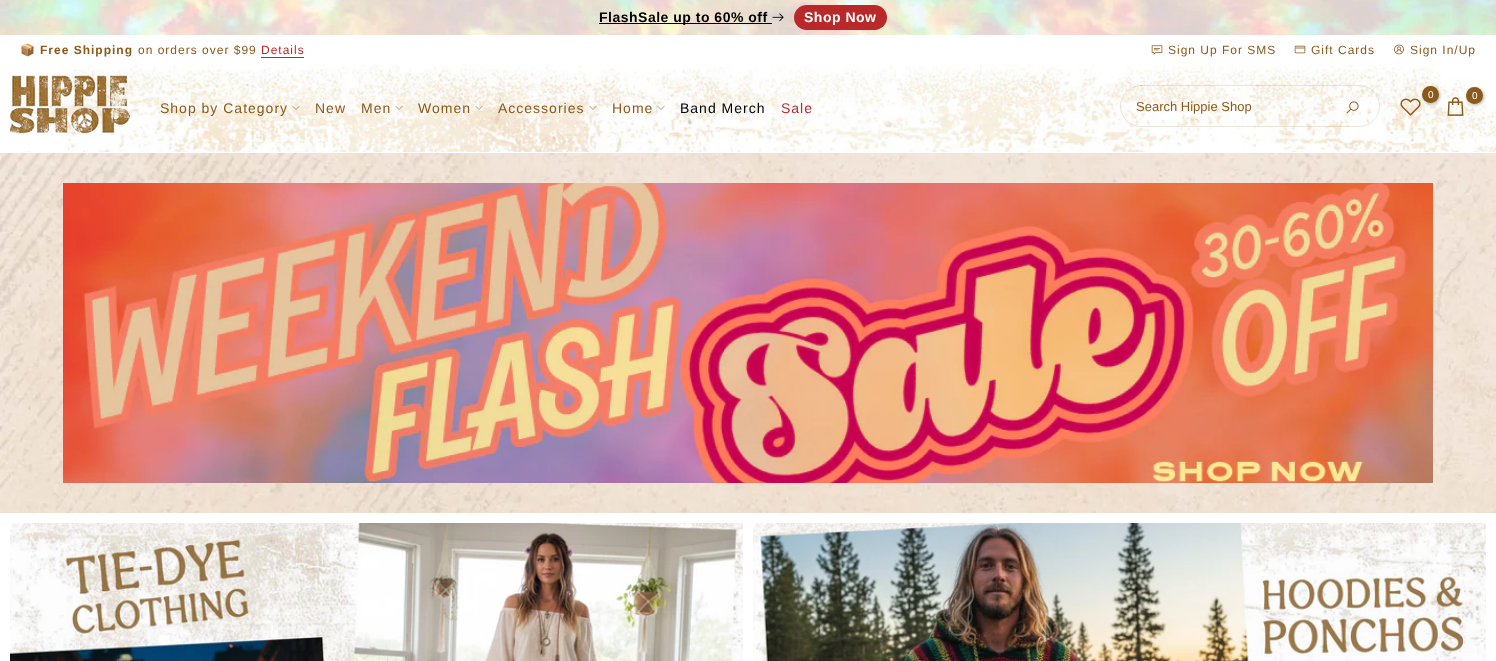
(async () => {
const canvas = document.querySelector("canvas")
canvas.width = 1496
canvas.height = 661
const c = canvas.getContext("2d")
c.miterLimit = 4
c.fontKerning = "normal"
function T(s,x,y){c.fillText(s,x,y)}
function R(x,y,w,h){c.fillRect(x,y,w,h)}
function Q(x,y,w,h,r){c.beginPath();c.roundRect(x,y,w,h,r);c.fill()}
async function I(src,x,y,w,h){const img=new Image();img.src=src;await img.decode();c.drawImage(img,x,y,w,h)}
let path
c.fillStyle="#fff"
R(0,0,1496,661)
await I("1.png",0,0,1496,35)
c.fillStyle="#010101"
R(599,23,173,1)
c.letterSpacing="0.5px"
c.font="bold 14px Liberation Sans"
T("FlashSale up to 60% off",599,22)
await I("2.png",772,13,12,9)
c.fillStyle="#ba2929"
Q(794,5,93,25,12.5)
c.fillStyle="#fff"
T("Shop Now",804,22)
c.letterSpacing="1px"
c.font="bold 12px Noto Color Emoji"
c.fillStyle="#8b5919"
T("📦",20,54)
c.font="bold 12px Liberation Sans"
T("Free Shipping",40,54)
c.font="12px Liberation Sans"
T("on orders over $99",138,54)
c.fillStyle="#ba2929"
T("Details",261,54)
R(261,57,43,1)
await I("3.png",1151,45,12,10)
c.fillStyle="#8b5919"
T("Sign Up For SMS",1168,54)
await I("4.png",1294,45,12,9)
T("Gift Cards",1311,54)
await I("5.png",1394,44,10,11)
T("Sign In/Up",1410,54)
await I("6.png",10,62,1486,90)
await I("7.png",10,75,120,59)
c.font="14px Liberation Sans"
T("Shop by Category",160,113)
path = new Path2D("M299 106.5l-3 3l-3-3")
c.strokeStyle="#8b5919cc"
c.lineWidth=0.8
c.lineCap="square"
c.stroke(path)
T("New",315,113)
T("Men",361,113)
path = new Path2D("M402 106.5l-3 3l-3-3")
c.stroke(path)
T("Women",418,113)
path = new Path2D("M482 106.5l-3 3l-3-3")
c.stroke(path)
T("Accessories",498,113)
path = new Path2D("M596 106.5l-3 3l-3-3")
c.stroke(path)
T("Home",612,113)
path = new Path2D("M664 106.5l-3 3l-3-3")
c.stroke(path)
c.fillStyle="#010101"
T("Band Merch",680,113)
c.fillStyle="#ba2929"
T("Sale",781,113)
await I("8.png",1400,98,21,18)
c.fillStyle="#0000004d"
c.filter="blur(1.5px)"
c.beginPath()
c.roundRect(1423,87,17,17,8.5)
c.fill()
c.filter="none"
c.fillStyle="#8b5919"
c.beginPath()
c.arc(1430.5,94.5,8.5,0,7)
c.fill()
c.letterSpacing="0px"
c.font="10px Liberation Sans"
c.fillStyle="#fff"
T("0",1428,98)
await I("9.png",1447,97,17,19)
c.fillStyle="#0000004d"
c.filter="blur(1.5px)"
c.beginPath()
c.roundRect(1467,88,17,17,8.5)
c.fill()
c.filter="none"
c.fillStyle="#8b5919"
c.beginPath()
c.arc(1474.5,95.5,8.5,0,7)
c.fill()
c.fillStyle="#fff"
T("0",1472,99)
c.beginPath()
c.roundRect(1120.5,85.5,259,41,20.5)
c.strokeStyle="#8b591926"
c.lineWidth=1
c.stroke()
c.font="13px Liberation Sans"
c.fillStyle="#8b5919"
T("Search Hippie Shop",1136,111)
await I("10.png",1346,101,13,13)
await I("11.png",0,153,1496,360)
await I("12.png",63,183,1370,300)
await I("13.png",10,523,733,138)
await I("14.png",753,523,733,138)
})()
